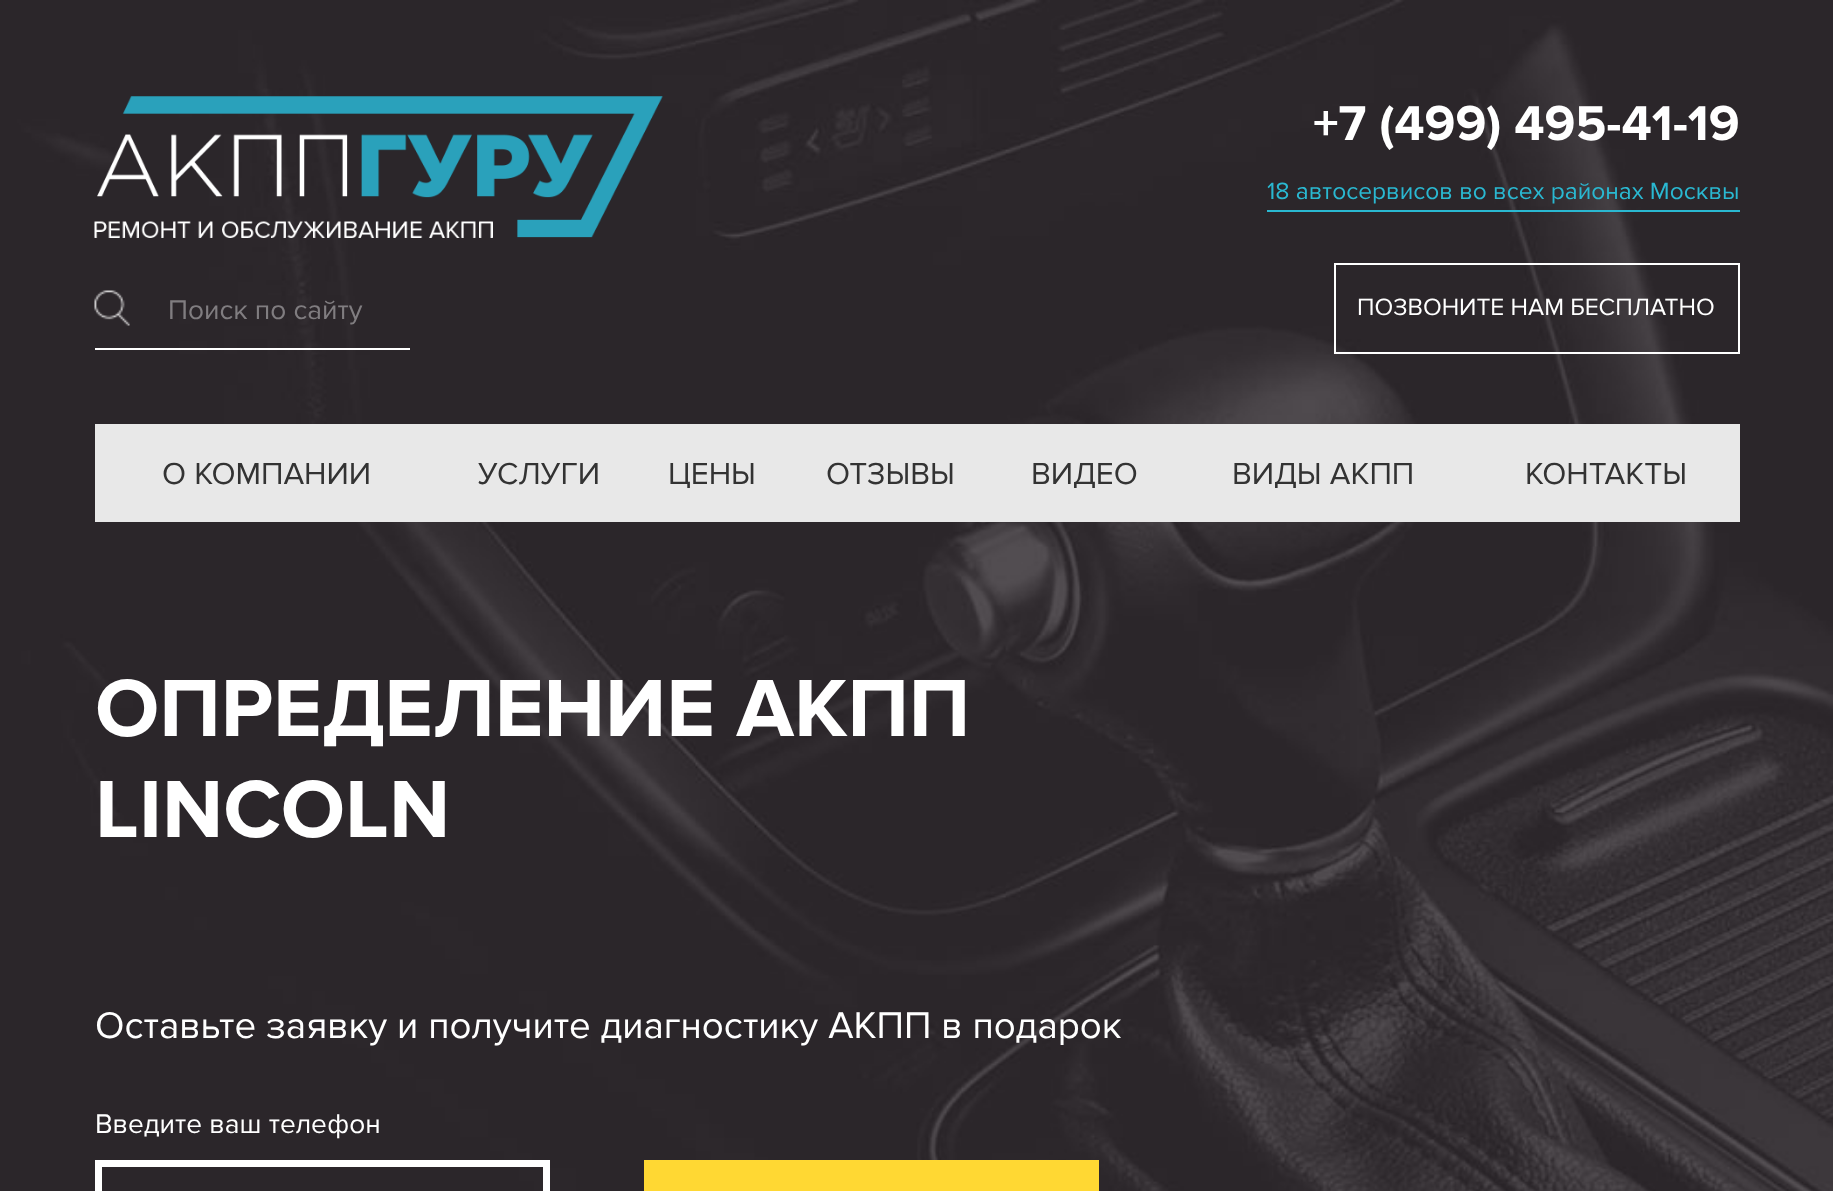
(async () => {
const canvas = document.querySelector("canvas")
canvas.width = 1833
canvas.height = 1191
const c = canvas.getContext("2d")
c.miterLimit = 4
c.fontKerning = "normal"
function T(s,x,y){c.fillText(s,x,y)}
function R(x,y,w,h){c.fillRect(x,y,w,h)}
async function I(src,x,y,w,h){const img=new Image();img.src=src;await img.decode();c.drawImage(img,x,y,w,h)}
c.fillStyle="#fff"
R(0,0,1833,1191)
await I("1.png",0,0,1833,1191)
await I("2.png",94,96,569,142)
await I("3.png",94,290,36,36)
R(95,348,315,2)
c.font="28px Proxima Nova"
c.fillStyle="#807d80"
T("Поиск по сайту",168,319)
c.font="bold 50.75px Proxima Nova"
c.fillStyle="#fff"
T("+7 (499) 495-41-19",1313,140)
c.fillStyle="#2ab8d1"
R(1267,210,473,2)
c.font="24.5px Proxima Nova"
T("18 автосервисов во всех районах Москвы",1267,199)
c.strokeStyle="#fff"
c.lineWidth=2
c.strokeRect(1335,264,404,89)
c.fillStyle="#fff"
T("ПОЗВОНИТЕ НАМ БЕСПЛАТНО",1357,315)
c.fillStyle="#e8e8e8"
R(95,424,1645,98)
c.font="31.5px Proxima Nova"
c.fillStyle="#333"
T("О КОМПАНИИ",162,484)
T("УСЛУГИ",478,484)
T("ЦЕНЫ",668,484)
T("ОТЗЫВЫ",826,484)
T("ВИДЕО",1031,484)
T("ВИДЫ АКПП",1232,484)
T("КОНТАКТЫ",1525,484)
c.font="bold 84px Proxima Nova"
c.fillStyle="#fff"
T("ОПРЕДЕЛЕНИЕ АКПП",95,736)
T("LINCOLN",95,837)
c.font="38.5px Proxima Nova"
T("Оставьте заявку и получите диагностику АКПП в подарок",95,1038)
c.font="28px Proxima Nova"
T("Введите ваш телефон",95,1133)
c.lineWidth=7
c.strokeRect(98.5,1163.5,448,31)
c.fillStyle="#ffd833"
R(644,1160,455,31)
})()
